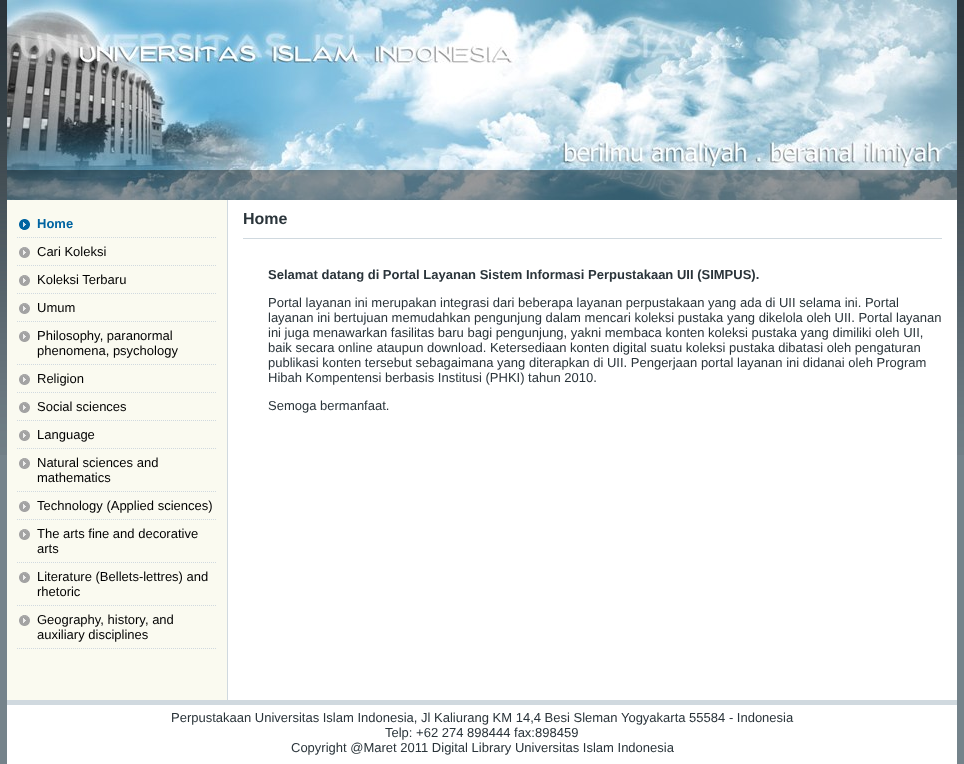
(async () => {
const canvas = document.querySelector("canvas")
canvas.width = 964
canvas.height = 764
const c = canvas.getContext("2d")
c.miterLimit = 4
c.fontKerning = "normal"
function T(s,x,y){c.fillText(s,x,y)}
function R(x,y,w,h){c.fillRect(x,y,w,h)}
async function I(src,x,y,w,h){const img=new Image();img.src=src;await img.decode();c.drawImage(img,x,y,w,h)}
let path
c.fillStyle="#75838b"
R(0,0,964,764)
await I("1.png",0,0,964,455)
c.fillStyle="#fff"
R(7,705,950,59)
await I("2.png",7,0,950,200)
c.fillStyle="#00000066"
R(7,170,950,30)
c.fillStyle="#fafaf0"
R(7,200,220,500)
await I("3.png",19,219,11,11)
path = new Path2D("M17 237.5h200")
c.strokeStyle="#d0d9df"
c.setLineDash([1,1])
c.stroke(path)
c.font="bold 13px Liberation Sans"
c.fillStyle="#0064a1"
T("Home",37,228)
await I("4.png",19,247,11,11)
path = new Path2D("M17 265.5h200")
c.stroke(path)
c.font="13px Liberation Sans"
c.fillStyle="#000"
T("Cari Koleksi",37,256)
await I("4.png",19,275,11,11)
path = new Path2D("M17 293.5h200")
c.stroke(path)
T("Koleksi Terbaru",37,284)
await I("4.png",19,303,11,11)
path = new Path2D("M17 321.5h200")
c.stroke(path)
T("Umum",37,312)
await I("4.png",19,331,11,11)
path = new Path2D("M17 364.5h200")
c.stroke(path)
T("Philosophy, paranormal",37,340)
T("phenomena, psychology",37,355)
await I("4.png",19,374,11,11)
path = new Path2D("M17 392.5h200")
c.stroke(path)
T("Religion",37,383)
await I("4.png",19,402,11,11)
path = new Path2D("M17 420.5h200")
c.stroke(path)
T("Social sciences",37,411)
await I("4.png",19,430,11,11)
path = new Path2D("M17 448.5h200")
c.stroke(path)
T("Language",37,439)
await I("4.png",19,458,11,11)
path = new Path2D("M17 491.5h200")
c.stroke(path)
T("Natural sciences and",37,467)
T("mathematics",37,482)
await I("4.png",19,501,11,11)
path = new Path2D("M17 519.5h200")
c.stroke(path)
T("Technology (Applied sciences)",37,510)
await I("4.png",19,529,11,11)
path = new Path2D("M17 562.5h200")
c.stroke(path)
T("The arts fine and decorative",37,538)
T("arts",37,553)
await I("4.png",19,572,11,11)
path = new Path2D("M17 605.5h200")
c.stroke(path)
T("Literature (Bellets-lettres) and",37,581)
T("rhetoric",37,596)
await I("4.png",19,615,11,11)
path = new Path2D("M17 648.5h200")
c.stroke(path)
T("Geography, history, and",37,624)
T("auxiliary disciplines",37,639)
c.fillStyle="#fff"
R(228,200,729,500)
c.fillStyle="#d0d9df"
R(227,200,1,500)
R(243,238,699,1)
c.font="bold 16px Liberation Sans"
c.fillStyle="#2a343a"
T("Home",243,224)
c.font="bold 13px Liberation Sans"
T("Selamat datang di Portal Layanan Sistem Informasi Perpustakaan UII (SIMPUS).",268,279)
c.font="13px Liberation Sans"
T("Portal layanan ini merupakan integrasi dari beberapa layanan perpustakaan yang ada di UII selama ini. Portal",268,307)
T("layanan ini bertujuan memudahkan pengunjung dalam mencari koleksi pustaka yang dikelola oleh UII. Portal layanan",268,322)
T("ini juga menawarkan fasilitas baru bagi pengunjung, yakni membaca konten koleksi pustaka yang dimiliki oleh UII,",268,337)
T("baik secara online ataupun download. Ketersediaan konten digital suatu koleksi pustaka dibatasi oleh pengaturan",268,352)
T("publikasi konten tersebut sebagaimana yang diterapkan di UII. Pengerjaan portal layanan ini didanai oleh Program",268,367)
T("Hibah Kompentensi berbasis Institusi (PHKI) tahun 2010.",268,382)
T("Semoga bermanfaat.",268,410)
c.fillStyle="#d0d9df"
R(7,700,950,5)
c.fillStyle="#2a343a"
T("Perpustakaan Universitas Islam Indonesia, Jl Kaliurang KM 14,4 Besi Sleman Yogyakarta 55584 - Indonesia",171,722)
T("Telp: +62 274 898444 fax:898459",385,737)
T("Copyright @Maret 2011 Digital Library Universitas Islam Indonesia",291,752)
})()
